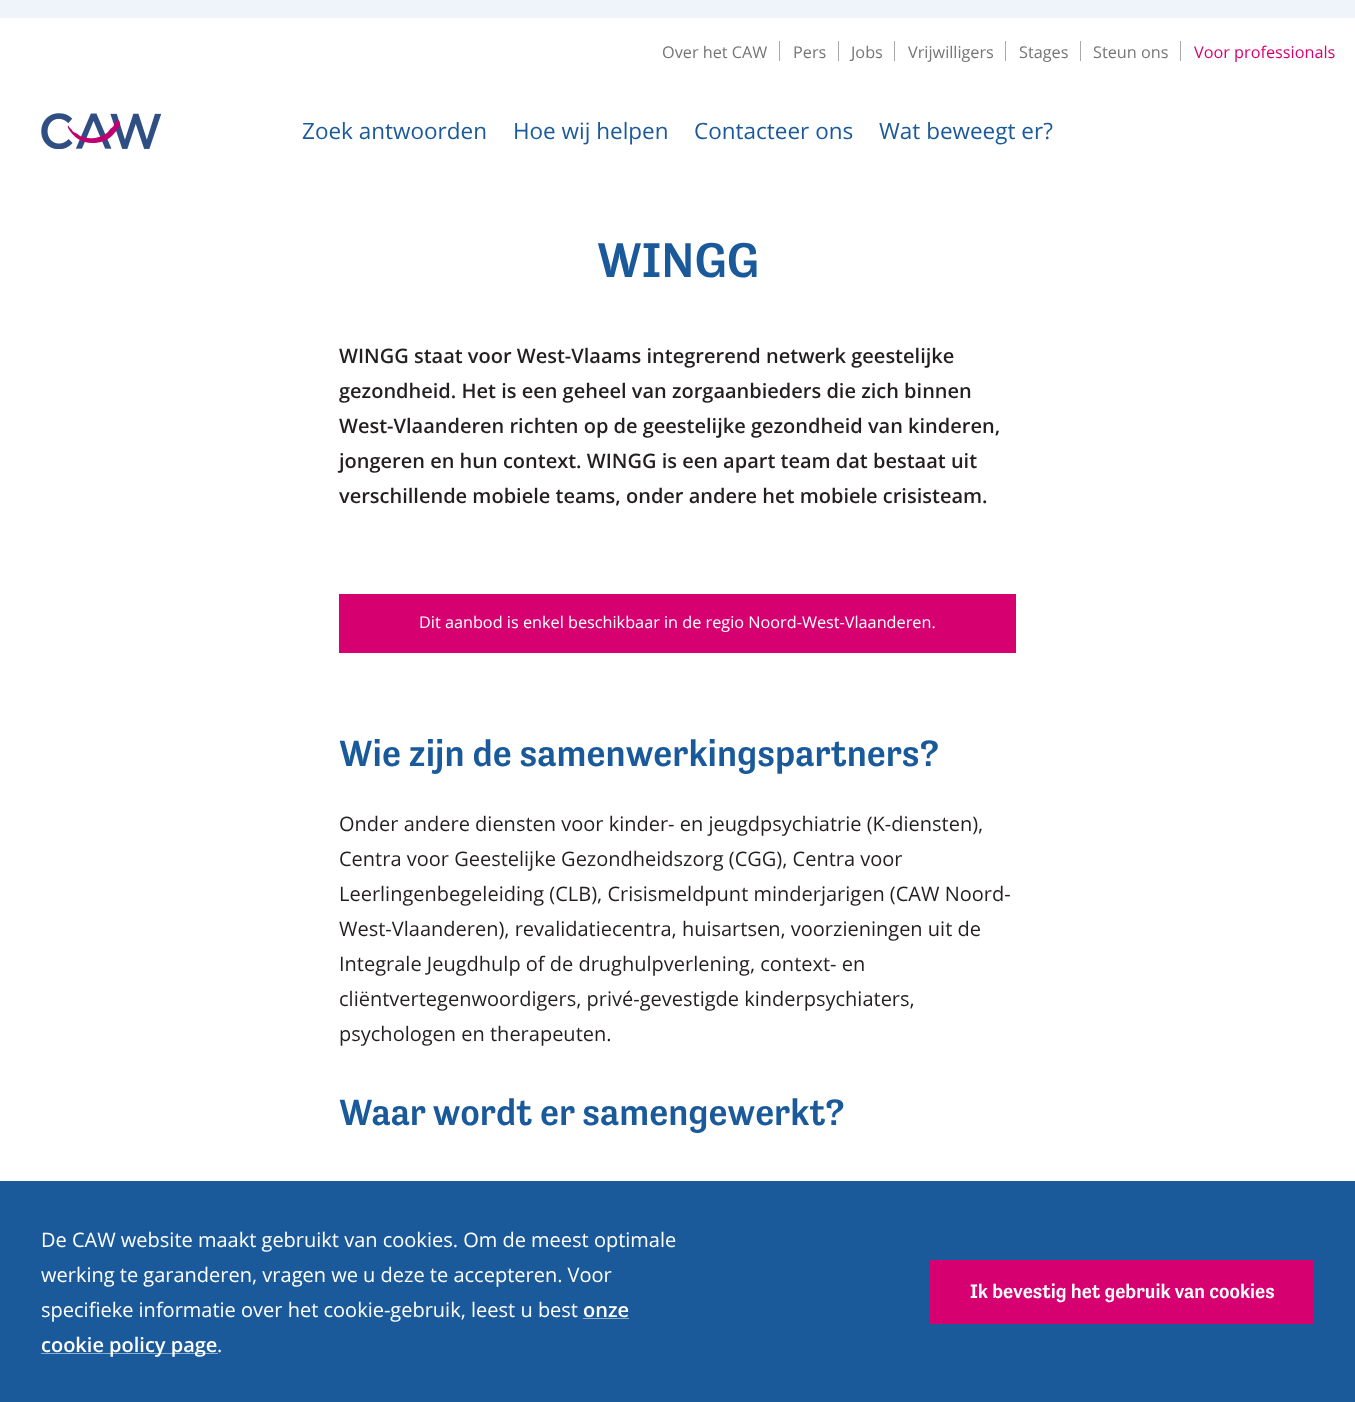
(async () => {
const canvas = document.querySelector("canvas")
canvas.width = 1355
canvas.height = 1402
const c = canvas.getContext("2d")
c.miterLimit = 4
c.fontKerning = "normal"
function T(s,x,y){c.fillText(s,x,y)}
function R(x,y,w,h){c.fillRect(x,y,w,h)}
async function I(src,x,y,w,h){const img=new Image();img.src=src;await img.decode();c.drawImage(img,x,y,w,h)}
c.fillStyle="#fff"
R(0,0,1355,1402)
c.fillStyle="#eef4fa"
R(0,0,1355,18)
c.font="16.25px Open Sans"
c.fillStyle="#767676"
T("Over het CAW",662,58)
c.fillStyle="#a9a9a9"
R(779,41,1,20)
c.fillStyle="#767676"
T("Pers",793,58)
c.fillStyle="#a9a9a9"
R(838,41,1,20)
c.fillStyle="#767676"
T("Jobs",851,58)
c.fillStyle="#a9a9a9"
R(894,41,1,20)
c.fillStyle="#767676"
T("Vrijwilligers",908,58)
c.fillStyle="#a9a9a9"
R(1005,41,1,20)
c.fillStyle="#767676"
T("Stages",1019,58)
c.fillStyle="#a9a9a9"
R(1080,41,1,20)
c.fillStyle="#767676"
T("Steun ons",1093,58)
c.fillStyle="#a9a9a9"
R(1180,41,1,20)
c.fillStyle="#d70071"
T("Voor professionals",1194,58)
await I("1.png",41,113,120,36)
c.font="22.5px Open Sans"
c.fillStyle="#1b5a9a"
T("Zoek antwoorden",302,139)
T("Hoe wij helpen",513,139)
T("Contacteer ons",694,139)
T("Wat beweegt er?",879,139)
c.font="500 50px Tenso"
T("WINGG",597,277)
c.font="600 20px Open Sans"
c.fillStyle="#231f20"
T("WINGG staat voor West-Vlaams integrerend netwerk geestelijke",339,363)
T("gezondheid. Het is een geheel van zorgaanbieders die zich binnen",339,398)
T("West-Vlaanderen richten op de geestelijke gezondheid van kinderen,",339,433)
T("jongeren en hun context. WINGG is een apart team dat bestaat uit",339,468)
T("verschillende mobiele teams, onder andere het mobiele crisisteam.",339,503)
c.fillStyle="#d70071"
R(339,594,677,59)
c.font="16.25px Open Sans"
c.fillStyle="#fff"
T("Dit aanbod is enkel beschikbaar in de regio Noord-West-Vlaanderen.",419,628)
c.font="500 37.5px Tenso"
c.fillStyle="#1b5a9a"
T("Wie zijn de samenwerkingspartners?",339,766)
c.font="20px Open Sans"
c.fillStyle="#231f20"
T("Onder andere diensten voor kinder- en jeugdpsychiatrie (K-diensten),",339,831)
T("Centra voor Geestelijke Gezondheidszorg (CGG), Centra voor",339,866)
T("Leerlingenbegeleiding (CLB), Crisismeldpunt minderjarigen (CAW Noord-",339,901)
T("West-Vlaanderen), revalidatiecentra, huisartsen, voorzieningen uit de",339,936)
T("Integrale Jeugdhulp of de drughulpverlening, context- en",339,971)
T("cliëntvertegenwoordigers, privé-gevestigde kinderpsychiaters,",339,1006)
T("psychologen en therapeuten.",339,1041)
c.font="500 37.5px Tenso"
c.fillStyle="#1b5a9a"
T("Waar wordt er samengewerkt?",339,1125)
R(0,1181,1355,221)
c.font="20px Open Sans"
c.fillStyle="#fff"
T("De CAW website maakt gebruikt van cookies. Om de meest optimale",41,1247)
T("werking te garanderen, vragen we u deze te accepteren. Voor",41,1282)
T("specifieke informatie over het cookie-gebruik, leest u best",41,1317)
c.font="600 20px Open Sans"
T("onze",583,1317)
c.fillStyle="#8dadcd"
R(583,1318,46,1)
R(41,1353,177,1)
c.fillStyle="#fff"
T("cookie policy page",41,1352)
c.font="20px Open Sans"
T(".",217,1352)
c.fillStyle="#d70071"
R(930,1260,384,64)
c.font="500 20px Tenso"
c.fillStyle="#fff"
T("Ik bevestig het gebruik van cookies",970,1298)
})()
